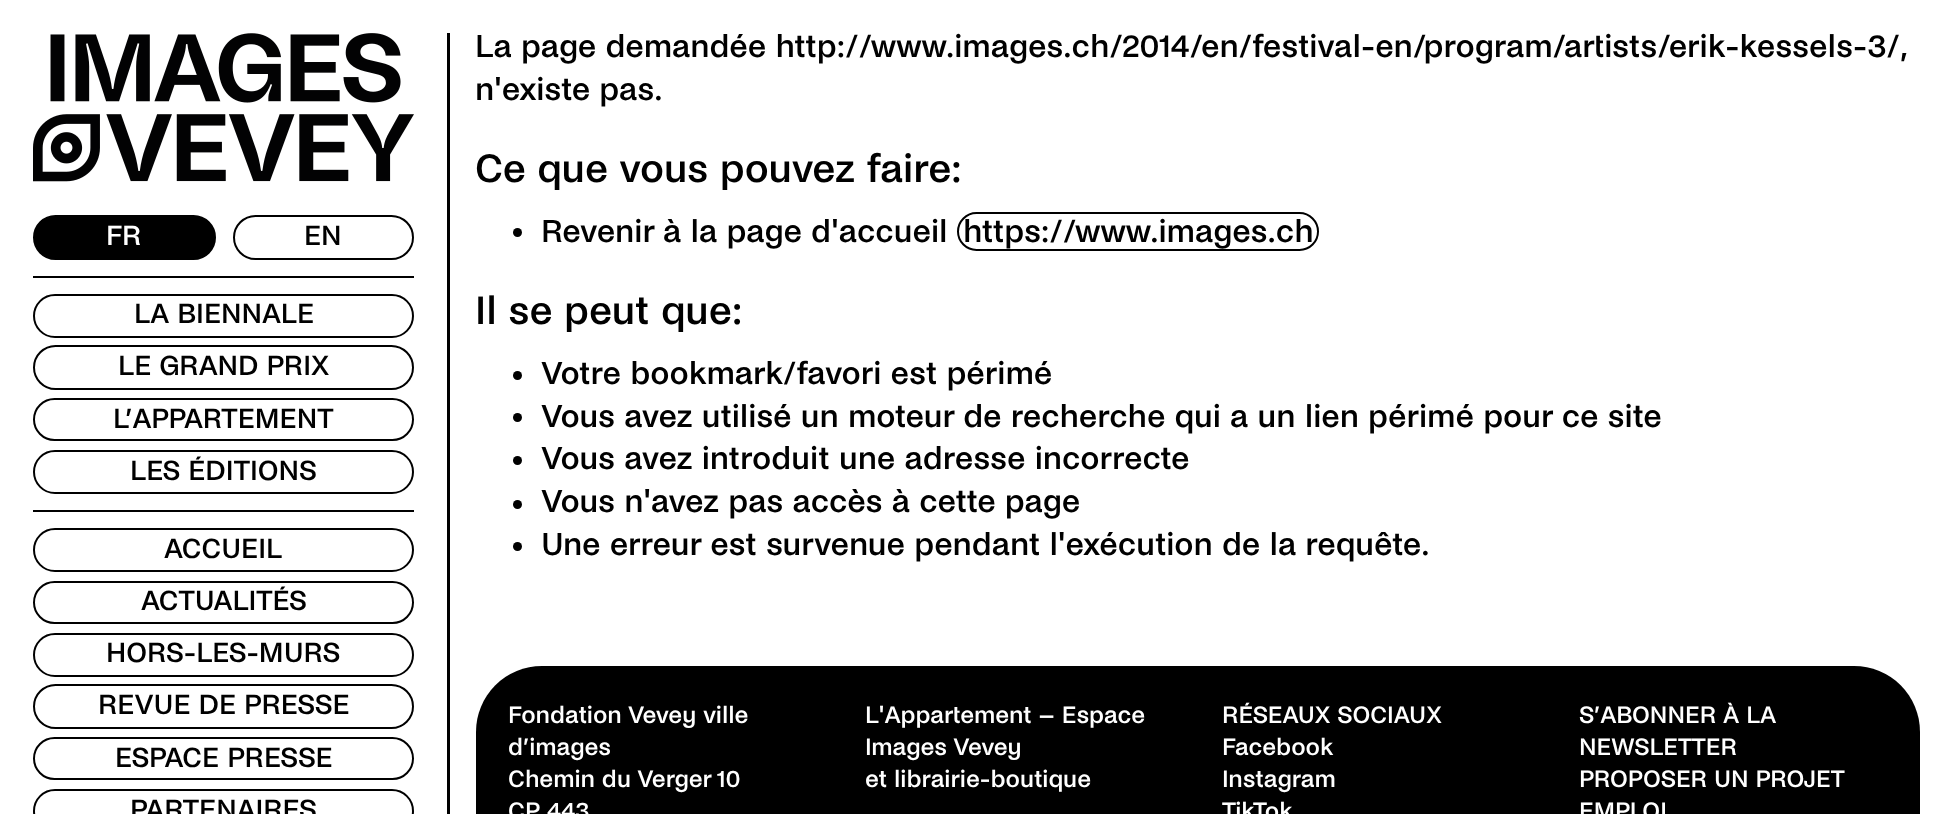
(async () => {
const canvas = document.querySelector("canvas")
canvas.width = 1944
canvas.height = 814
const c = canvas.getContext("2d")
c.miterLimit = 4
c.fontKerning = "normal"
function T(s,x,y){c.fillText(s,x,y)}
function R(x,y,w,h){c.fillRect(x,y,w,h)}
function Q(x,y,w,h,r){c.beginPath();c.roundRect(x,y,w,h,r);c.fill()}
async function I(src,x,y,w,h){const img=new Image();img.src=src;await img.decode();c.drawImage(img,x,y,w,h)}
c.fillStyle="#fff"
R(0,0,1944,814)
c.fillStyle="#000"
R(447,33,3,781)
await I("1.png",33,33,381,149)
c.beginPath()
c.roundRect(34,216,181,43,21.5)
c.fill()
c.strokeStyle="#000"
c.lineWidth=2
c.stroke()
c.font="500 28.9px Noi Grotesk"
c.fillStyle="#fff"
T("FR",106,245)
c.beginPath()
c.roundRect(234,216,179,43,21.5)
c.stroke()
c.fillStyle="#000"
T("EN",304,245)
R(33,276,381,2)
c.beginPath()
c.roundRect(34,295,379,42,21)
c.stroke()
T("LA BIENNALE",134,323)
c.beginPath()
c.roundRect(34,346,379,43,21.5)
c.stroke()
T("LE GRAND PRIX",118,375)
c.beginPath()
c.roundRect(34,399,379,41,20.5)
c.stroke()
T("L’APPARTEMENT",113,428)
c.beginPath()
c.roundRect(34,451,379,42,21)
c.stroke()
T("LES ÉDITIONS",130,480)
R(33,510,381,2)
c.beginPath()
c.roundRect(34,529,379,42,21)
c.stroke()
T("ACCUEIL",164,558)
c.beginPath()
c.roundRect(34,582,379,41,20.5)
c.stroke()
T("ACTUALITÉS",141,610)
c.beginPath()
c.roundRect(34,634,379,42,21)
c.stroke()
T("HORS-LES-MURS",106,662)
c.beginPath()
c.roundRect(34,685,379,43,21.5)
c.stroke()
T("REVUE DE PRESSE",98,714)
c.beginPath()
c.roundRect(34,738,379,41,20.5)
c.stroke()
T("ESPACE PRESSE",115,767)
c.beginPath()
c.roundRect(34,790,379,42,21)
c.stroke()
T("PARTENAIRES",130,819)
c.font="500 33px Noi Grotesk"
T("La page demandée http://www.images.ch/2014/en/festival-en/program/artists/erik-kessels-3/,",475,57)
T("n'existe pas.",475,100)
c.font="500 41.25px Noi Grotesk"
T("Ce que vous pouvez faire:",475,182)
c.beginPath()
c.arc(517.5,232.5,4.5,0,7)
c.fill()
c.font="500 33px Noi Grotesk"
T("Revenir à la page d'accueil",541,242)
c.beginPath()
c.roundRect(958,213,360,37,18.5)
c.stroke()
T("https://www.images.ch",963,242)
c.font="500 41.25px Noi Grotesk"
T("Il se peut que:",475,324)
c.beginPath()
c.arc(517.5,375.5,4.5,0,7)
c.fill()
c.font="500 33px Noi Grotesk"
T("Votre bookmark/favori est périmé",541,384)
c.beginPath()
c.arc(517.5,417.5,4.5,0,7)
c.fill()
T("Vous avez utilisé un moteur de recherche qui a un lien périmé pour ce site",541,427)
c.beginPath()
c.arc(517.5,460.5,4.5,0,7)
c.fill()
T("Vous avez introduit une adresse incorrecte",541,469)
c.beginPath()
c.arc(517.5,504.5,4.5,0,7)
c.fill()
T("Vous n'avez pas accès à cette page",541,512)
c.beginPath()
c.arc(517.5,546.5,4.5,0,7)
c.fill()
T("Une erreur est survenue pendant l'exécution de la requête.",541,555)
Q(476,666,1444,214,66)
c.font="500 24.75px Noi Grotesk"
c.fillStyle="#fff"
T("Fondation Vevey ville",508,723)
T("d’images",508,755)
T("Chemin du Verger 10",508,787)
T("CP 443",508,819)
T("L'Appartement – Espace",865,723)
T("Images Vevey",865,755)
T("et librairie-boutique",865,787)
T("RÉSEAUX SOCIAUX",1222,723)
T("Facebook",1222,755)
T("Instagram",1222,787)
T("TikTok",1222,819)
T("S’ABONNER À LA",1579,723)
T("NEWSLETTER",1579,755)
T("PROPOSER UN PROJET",1579,787)
T("EMPLOI",1579,819)
})()
